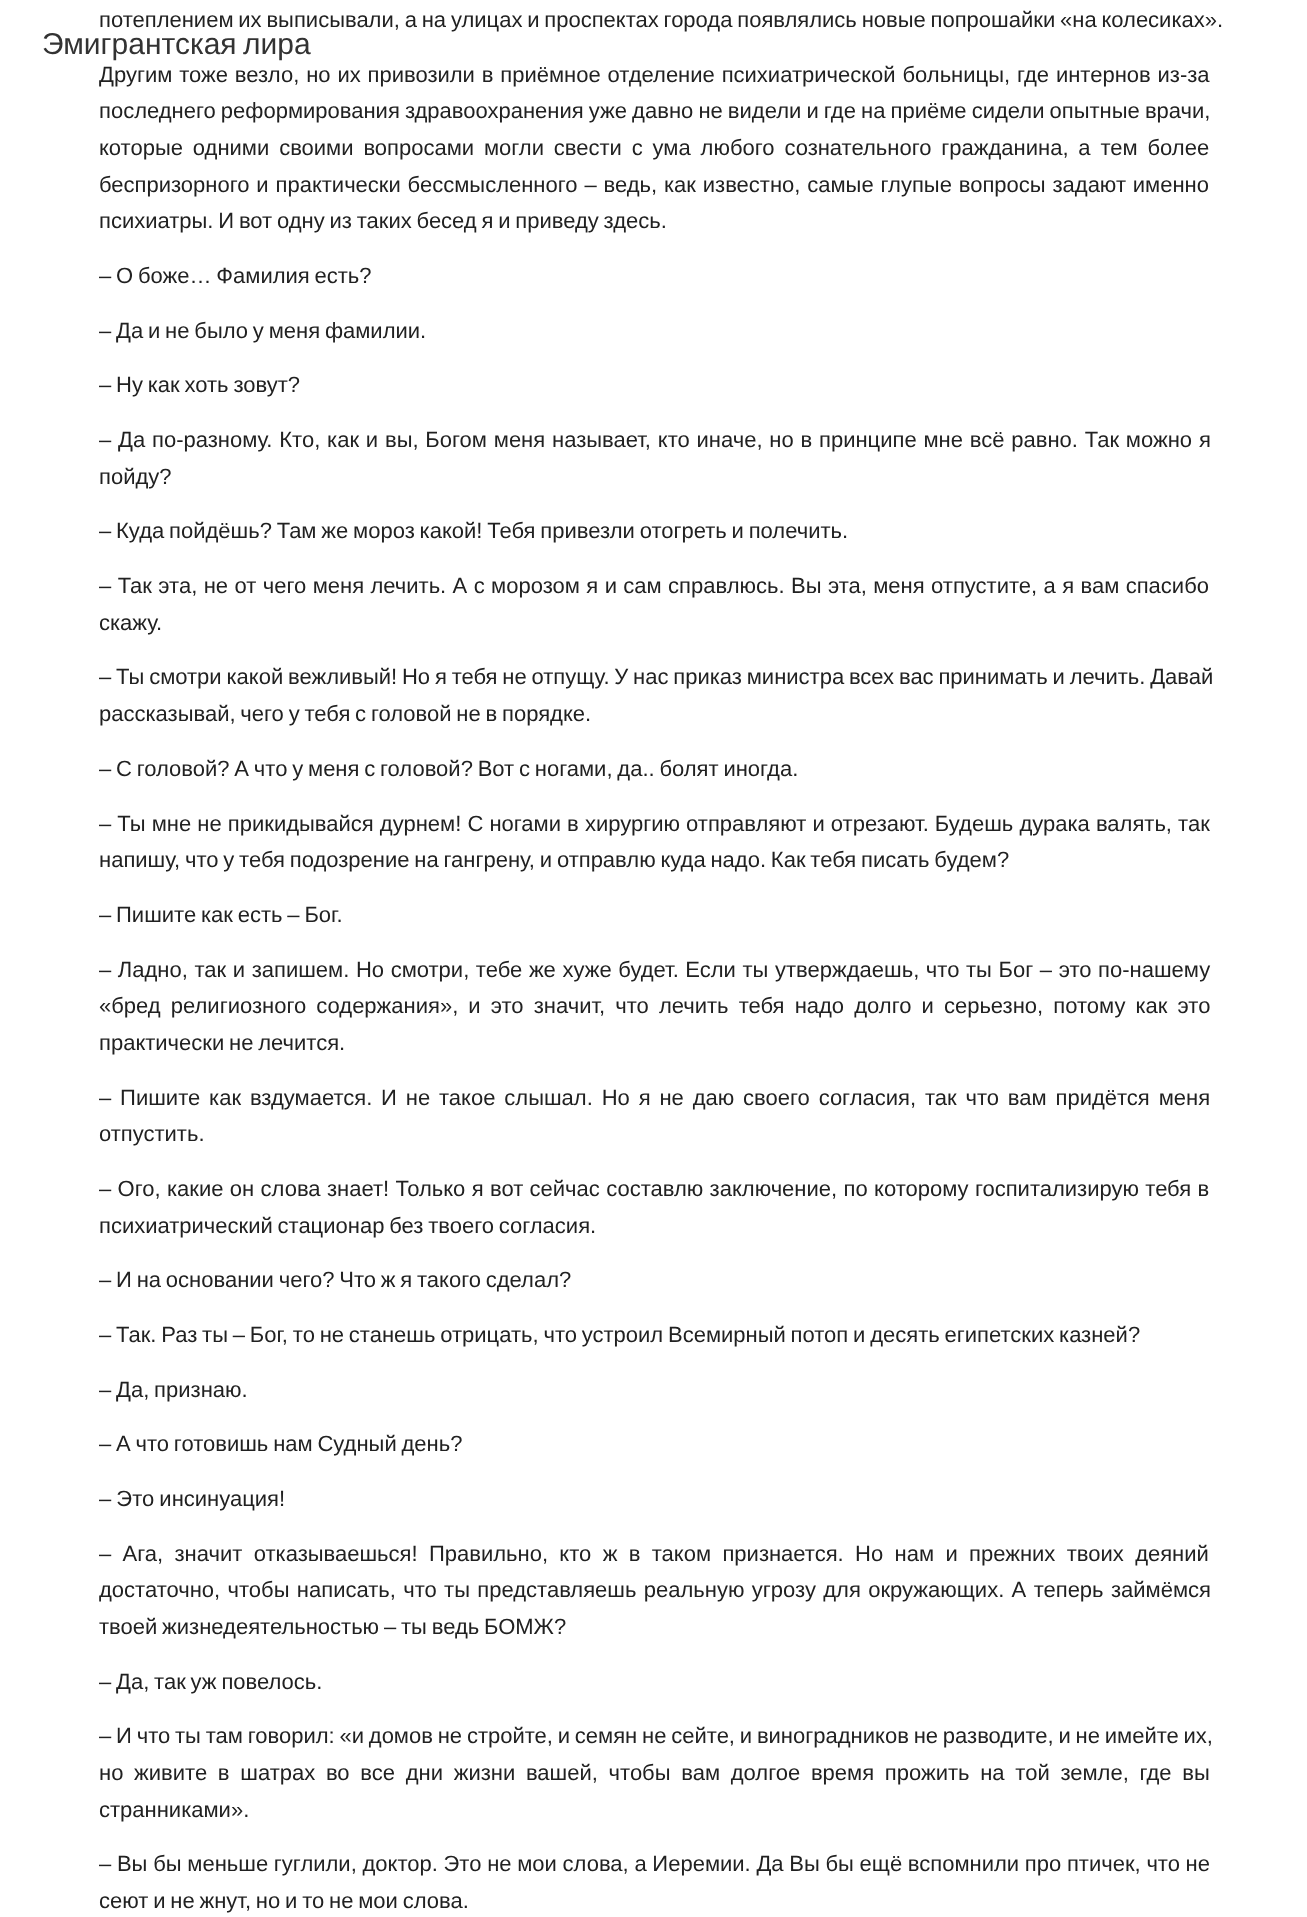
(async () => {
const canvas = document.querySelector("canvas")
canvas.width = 1307
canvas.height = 1917
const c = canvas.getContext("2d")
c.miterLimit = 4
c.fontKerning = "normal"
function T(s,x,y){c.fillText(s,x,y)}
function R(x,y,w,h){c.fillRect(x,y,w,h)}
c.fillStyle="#fff"
R(0,0,1307,1917)
c.wordSpacing="-1.3px"
c.font="22px Liberation Sans"
c.fillStyle="#212121"
T("потеплением их выписывали, а на улицах и проспектах города появлялись новые попрошайки «на колесиках».",99,27)
c.wordSpacing="0.75px"
T("Другим тоже везло, но их привозили в приёмное отделение психиатрической больницы, где интернов из-за",99,82)
c.wordSpacing="-1px"
T("последнего реформирования здравоохранения уже давно не видели и где на приёме сидели опытные врачи,",99,118)
c.wordSpacing="3.75px"
T("которые одними своими вопросами могли свести с ума любого сознательного гражданина, а тем более",99,155)
c.wordSpacing="0.75px"
T("беспризорного и практически бессмысленного – ведь, как известно, самые глупые вопросы задают именно",99,192)
c.wordSpacing="-1.3px"
T("психиатры. И вот одну из таких бесед я и приведу здесь.",99,228)
T("– О боже… Фамилия есть?",99,283)
T("– Да и не было у меня фамилии.",99,338)
T("– Ну как хоть зовут?",99,392)
c.wordSpacing="0.7px"
T("– Да по-разному. Кто, как и вы, Богом меня называет, кто иначе, но в принципе мне всё равно. Так можно я",99,447)
c.wordSpacing="0px"
T("пойду?",99,484)
c.wordSpacing="-1.3px"
T("– Куда пойдёшь? Там же мороз какой! Тебя привезли отогреть и полечить.",99,538)
c.wordSpacing="0.3px"
T("– Так эта, не от чего меня лечить. А с морозом я и сам справлюсь. Вы эта, меня отпустите, а я вам спасибо",99,593)
c.wordSpacing="0px"
T("скажу.",99,630)
c.wordSpacing="-1.3px"
T("– Ты смотри какой вежливый! Но я тебя не отпущу. У нас приказ министра всех вас принимать и лечить. Давай",99,684)
T("рассказывай, чего у тебя с головой не в порядке.",99,721)
T("– С головой? А что у меня с головой? Вот с ногами, да.. болят иногда.",99,776)
c.wordSpacing="0px"
T("– Ты мне не прикидывайся дурнем! С ногами в хирургию отправляют и отрезают. Будешь дурака валять, так",99,831)
c.wordSpacing="-1.3px"
T("напишу, что у тебя подозрение на гангрену, и отправлю куда надо. Как тебя писать будем?",99,867)
T("– Пишите как есть – Бог.",99,922)
c.wordSpacing="0.5px"
T("– Ладно, так и запишем. Но смотри, тебе же хуже будет. Если ты утверждаешь, что ты Бог – это по-нашему",99,977)
c.wordSpacing="4px"
T("«бред религиозного содержания», и это значит, что лечить тебя надо долго и серьезно, потому как это",99,1013)
c.wordSpacing="-1.3px"
T("практически не лечится.",99,1050)
c.wordSpacing="2.75px"
T("– Пишите как вздумается. И не такое слышал. Но я не даю своего согласия, так что вам придётся меня",99,1105)
c.wordSpacing="0px"
T("отпустить.",99,1141)
c.wordSpacing="0.25px"
T("– Ого, какие он слова знает! Только я вот сейчас составлю заключение, по которому госпитализирую тебя в",99,1196)
c.wordSpacing="-1.3px"
T("психиатрический стационар без твоего согласия.",99,1233)
T("– И на основании чего? Что ж я такого сделал?",99,1287)
T("– Так. Раз ты – Бог, то не станешь отрицать, что устроил Всемирный потоп и десять египетских казней?",99,1342)
T("– Да, признаю.",99,1397)
T("– А что готовишь нам Судный день?",99,1451)
c.wordSpacing="-1px"
T("– Это инсинуация!",99,1506)
c.wordSpacing="5.25px"
T("– Ага, значит отказываешься! Правильно, кто ж в таком признается. Но нам и прежних твоих деяний",99,1561)
c.wordSpacing="1.25px"
T("достаточно, чтобы написать, что ты представляешь реальную угрозу для окружающих. А теперь займёмся",99,1597)
c.wordSpacing="-1.3px"
T("твоей жизнедеятельностью – ты ведь БОМЖ?",99,1634)
T("– Да, так уж повелось.",99,1689)
T("– И что ты там говорил: «и домов не стройте, и семян не сейте, и виноградников не разводите, и не имейте их,",99,1743)
c.wordSpacing="4.6px"
T("но живите в шатрах во все дни жизни вашей, чтобы вам долгое время прожить на той земле, где вы",99,1780)
c.wordSpacing="0px"
T("странниками».",99,1817)
c.wordSpacing="-0.4px"
T("– Вы бы меньше гуглили, доктор. Это не мои слова, а Иеремии. Да Вы бы ещё вспомнили про птичек, что не",99,1871)
c.wordSpacing="-1.3px"
T("сеют и не жнут, но и то не мои слова.",99,1908)
c.wordSpacing="-2px"
c.font="30px Liberation Sans"
c.fillStyle="#333"
T("Эмигрантская лира",42,54)
})()
